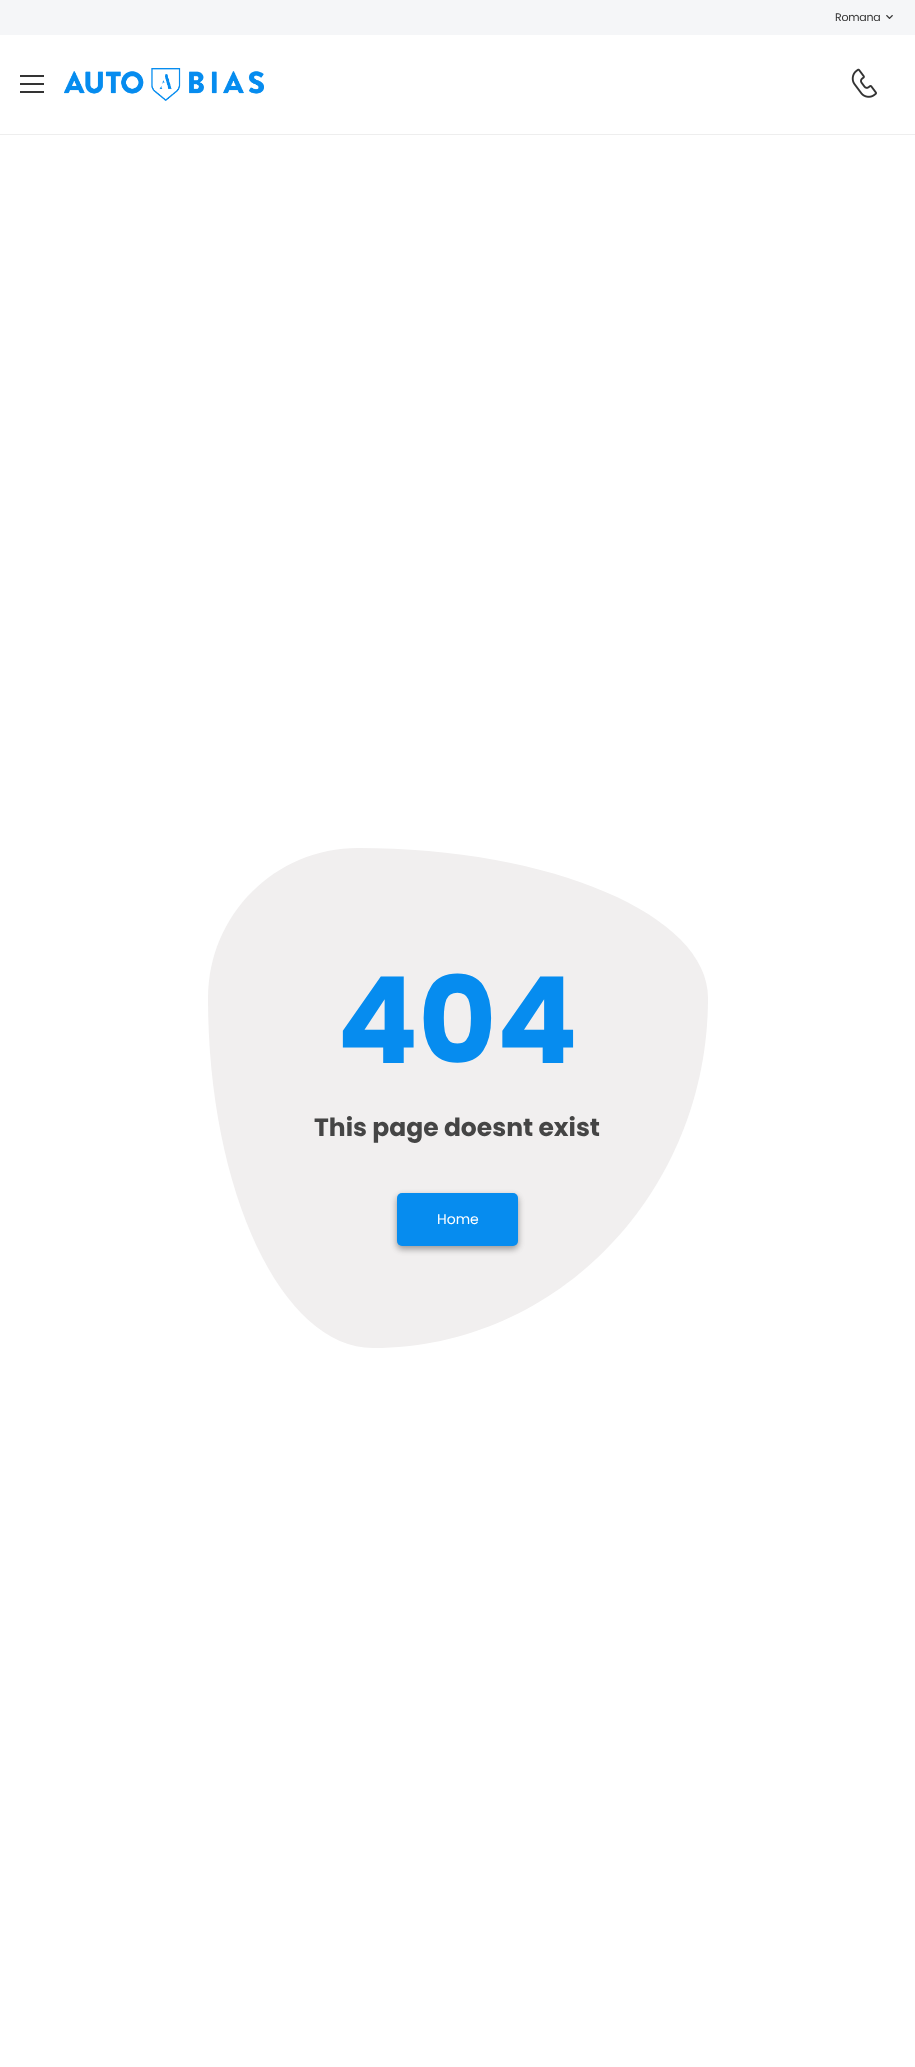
(async () => {
const canvas = document.querySelector("canvas")
canvas.width = 915
canvas.height = 2067
const c = canvas.getContext("2d")
c.miterLimit = 4
c.fontKerning = "normal"
function T(s,x,y){c.fillText(s,x,y)}
function R(x,y,w,h){c.fillRect(x,y,w,h)}
function Q(x,y,w,h,r){c.beginPath();c.roundRect(x,y,w,h,r);c.fill()}
async function I(src,x,y,w,h){const img=new Image();img.src=src;await img.decode();c.drawImage(img,x,y,w,h)}
let path
c.fillStyle="#fff"
R(0,0,915,2067)
c.fillStyle="#f5f6f8"
R(0,0,915,35)
c.letterSpacing="-0.25px"
c.font="11px Poppins"
c.fillStyle="#333"
T("Romana",835,21)
await I("1.png",886,15,7,4)
c.fillStyle="#eee"
R(0,134,915,1)
await I("2.png",20,75,24,18)
await I("3.png",64,68,200,33)
await I("4.png",851,68,26,30)
c.fillStyle="#f1efef"
path = new Path2D("M358 848c193 0 350 67 350 150c0 193-150 350-335 350c-91 0-165-157-165-350c0-83 67-150 150-150z")
c.fill(path)
c.letterSpacing="0px"
c.font="bold 120px Poppins"
c.fillStyle="#068cef"
T("404",337,1063)
c.font="bold 25px Poppins"
c.fillStyle="#454545"
T("This page doesnt exist",314,1136)
c.fillStyle="#0000003b"
c.filter="blur(3px)"
c.beginPath()
c.roundRect(397,1196,121,53,5)
c.fill()
c.filter="none"
c.fillStyle="#00000029"
c.filter="blur(3px)"
c.beginPath()
c.roundRect(397,1196,121,53,5)
c.fill()
c.filter="none"
c.fillStyle="#068cef"
Q(397,1193,121,53,5)
c.font="14px Poppins"
c.fillStyle="#fff"
T("Home",437,1224)
})()
